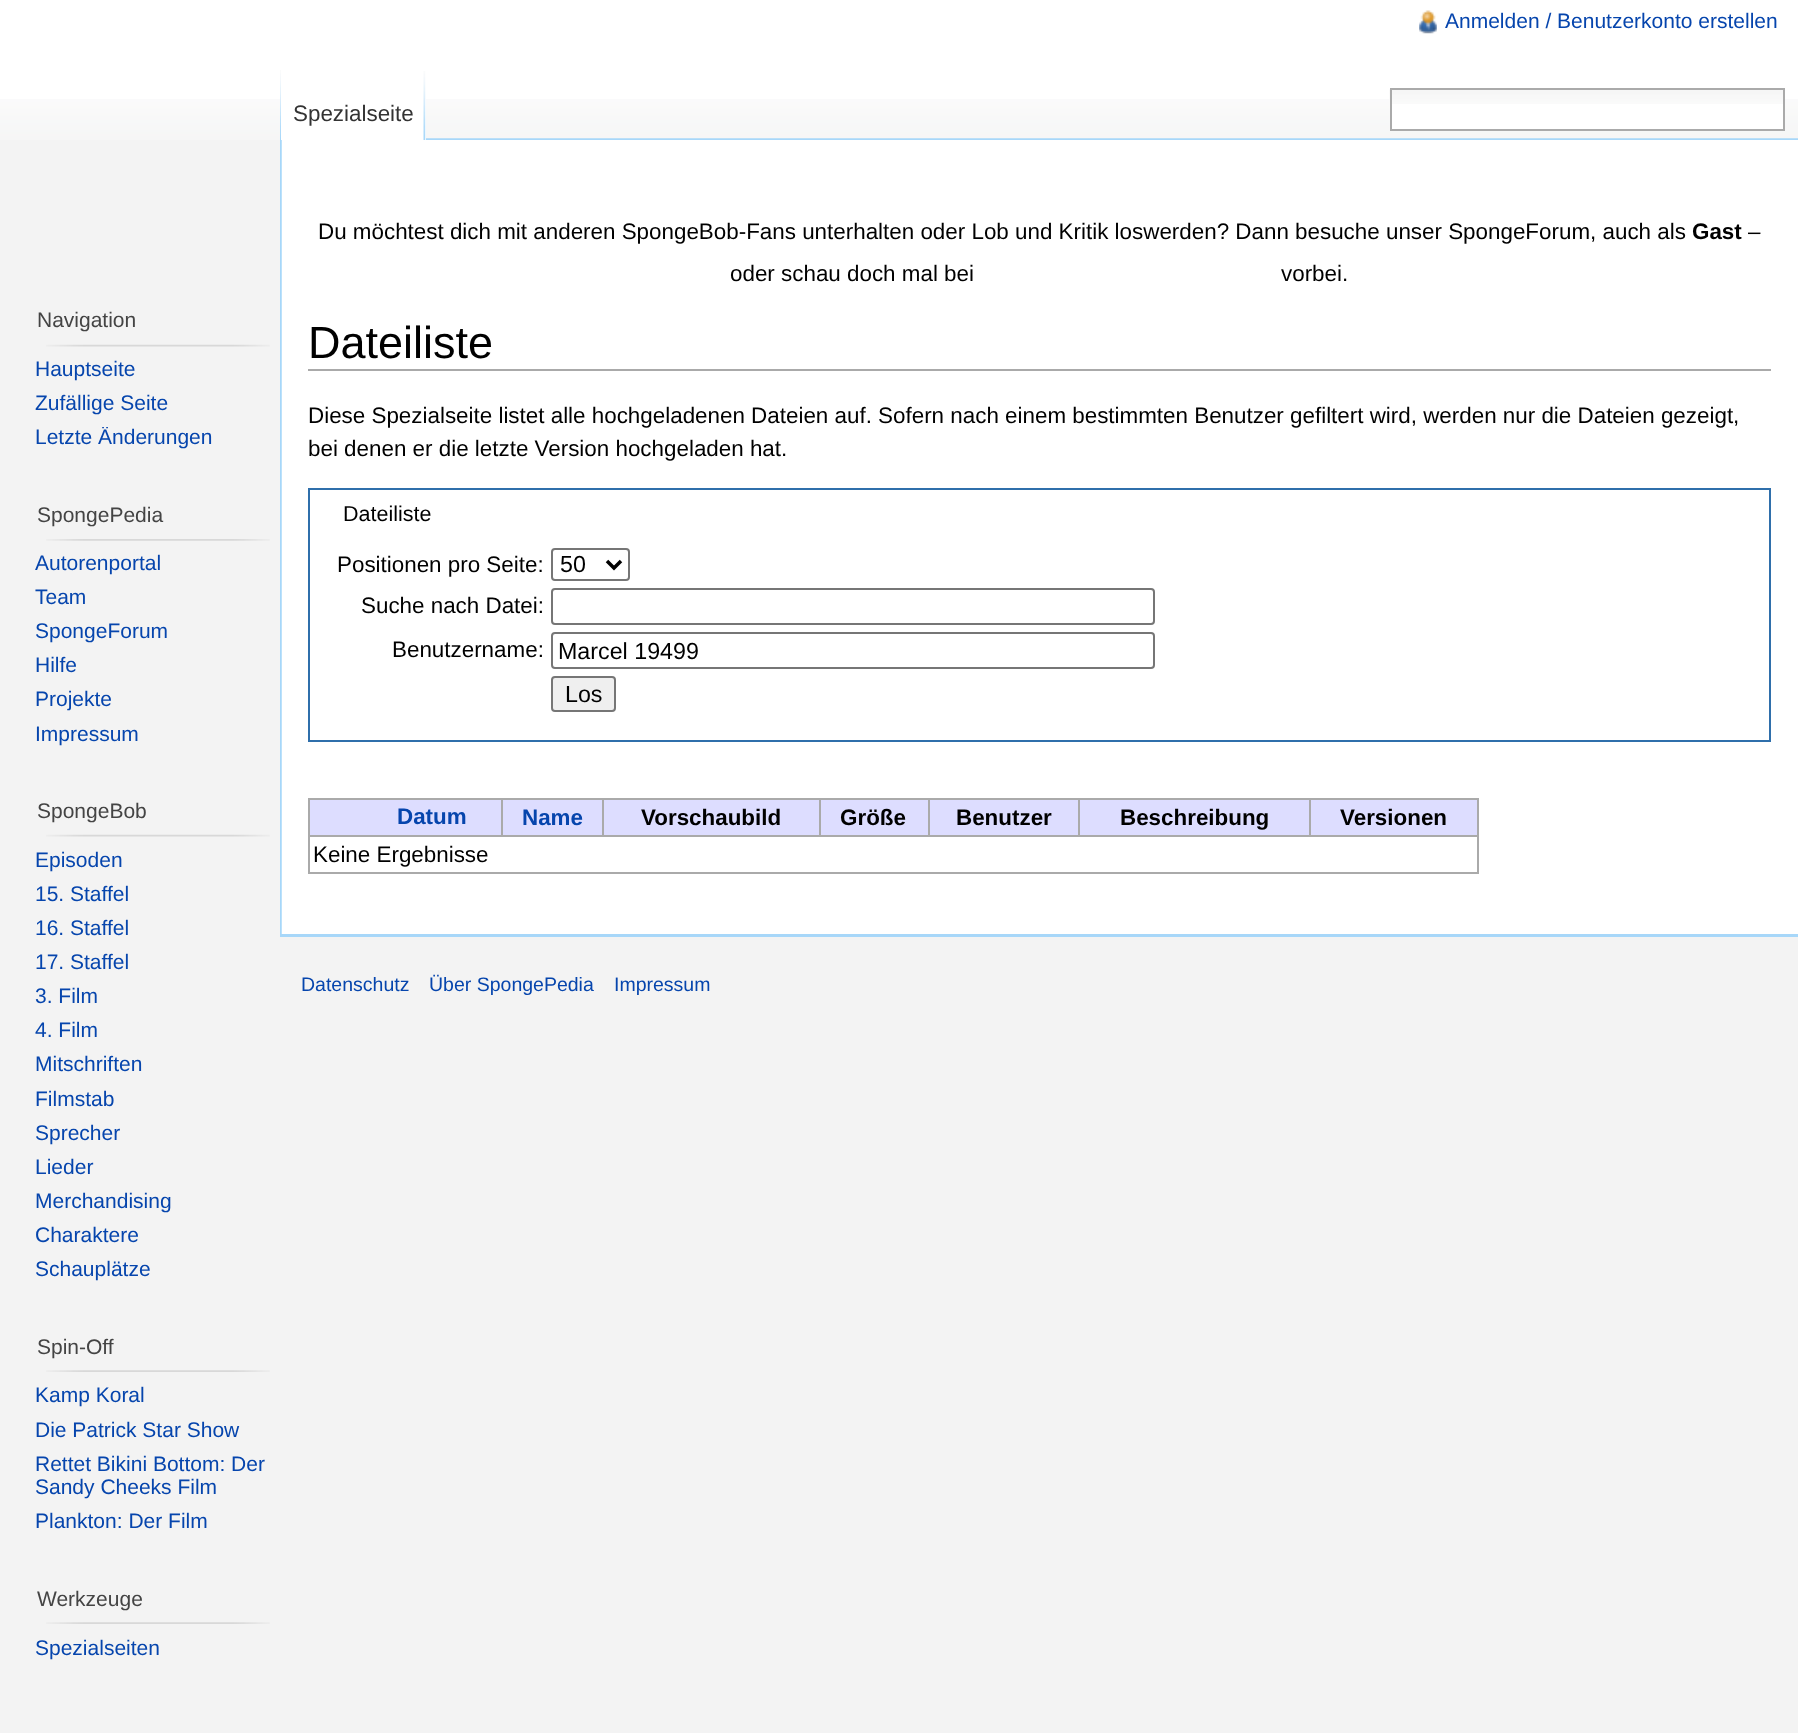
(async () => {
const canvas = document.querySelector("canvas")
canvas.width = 1798
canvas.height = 1733
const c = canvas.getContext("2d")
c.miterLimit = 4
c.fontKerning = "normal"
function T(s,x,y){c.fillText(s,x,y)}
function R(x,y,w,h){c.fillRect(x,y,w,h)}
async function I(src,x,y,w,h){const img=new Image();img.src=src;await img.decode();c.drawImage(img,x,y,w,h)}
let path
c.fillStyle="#f3f3f3"
R(0,0,1798,1733)
c.fillStyle="#fff"
R(0,0,1798,99)
await I("1.png",0,99,1798,41)
await I("2.png",1419,10,18,24)
c.font="21px Liberation Sans"
c.fillStyle="#0645ad"
T("Anmelden / Benutzerkonto erstellen",1445,28)
await I("6.png",280,138,1518,2)
await I("3.png",280,70,1,69)
c.fillStyle="#fff"
R(281,99,145,41)
await I("4.png",423,71,3,69)
c.font="22.4px Liberation Sans"
c.fillStyle="#333"
T("Spezialseite",293,121)
c.fillStyle="#fff"
R(1392,104,391,25)
await I("5.png",1389,89,394,15)
c.strokeStyle="#aaa"
c.lineWidth=2
c.strokeRect(1391,89,393,41)
c.font="21px Liberation Sans"
c.fillStyle="#444"
T("Navigation",37,327)
await I("7.png",46,344,224,3)
c.fillStyle="#0645ad"
T("Hauptseite",35,376)
T("Zufällige Seite",35,410)
c.save()
c.beginPath()
c.rect(35,427,245,33)
c.clip()
T("Letzte Änderungen",35,444)
c.restore()
c.fillStyle="#444"
T("SpongePedia",37,522)
await I("8.png",46,539,224,2)
c.fillStyle="#0645ad"
T("Autorenportal",35,570)
T("Team",35,604)
T("SpongeForum",35,638)
T("Hilfe",35,672)
T("Projekte",35,706)
T("Impressum",35,741)
c.fillStyle="#444"
T("SpongeBob",37,818)
await I("7.png",46,834,224,3)
c.fillStyle="#0645ad"
T("Episoden",35,867)
T("15. Staffel",35,901)
T("16. Staffel",35,935)
T("17. Staffel",35,969)
T("3. Film",35,1003)
T("4. Film",35,1037)
T("Mitschriften",35,1071)
T("Filmstab",35,1106)
T("Sprecher",35,1140)
T("Lieder",35,1174)
T("Merchandising",35,1208)
T("Charaktere",35,1242)
T("Schauplätze",35,1276)
c.fillStyle="#444"
T("Spin-Off",37,1354)
await I("9.png",46,1370,224,2)
c.fillStyle="#0645ad"
T("Kamp Koral",35,1402)
T("Die Patrick Star Show",35,1437)
T("Rettet Bikini Bottom: Der",35,1471)
T("Sandy Cheeks Film",35,1494)
T("Plankton: Der Film",35,1528)
c.fillStyle="#444"
T("Werkzeuge",37,1606)
await I("9.png",46,1622,224,2)
c.fillStyle="#0645ad"
T("Spezialseiten",35,1655)
c.fillStyle="#fff"
R(281,140,1517,794)
await I("10.png",280,140,2,794)
c.font="22.4px Liberation Sans"
c.fillStyle="#000"
T("Du möchtest dich mit anderen SpongeBob-Fans unterhalten oder Lob und Kritik loswerden? Dann besuche unser SpongeForum, auch als",318,239)
c.font="bold 22.4px Liberation Sans"
T("Gast",1692,239)
c.font="22.4px Liberation Sans"
T("–",1748,239)
T("oder schau doch mal bei",730,281)
T("vorbei.",1281,281)
c.fillStyle="#aaa"
R(308,369,1463,2)
c.font="45px Liberation Sans"
c.fillStyle="#000"
T("Dateiliste",308,358)
c.font="22.4px Liberation Sans"
T("Diese Spezialseite listet alle hochgeladenen Dateien auf. Sofern nach einem bestimmten Benutzer gefiltert wird, werden nur die Dateien gezeigt,",308,423)
T("bei denen er die letzte Version hochgeladen hat.",308,456)
c.strokeStyle="#2f6fab"
c.strokeRect(309,489,1461,252)
c.font="21.5px Liberation Sans"
T("Dateiliste",343,521)
c.font="22.4px Liberation Sans"
T("Positionen pro Seite:",337,572)
c.beginPath()
c.roundRect(552,549,77,31,3)
c.strokeStyle="#767676"
c.stroke()
path = new Path2D("M607 561l7 7l7-7")
c.strokeStyle="#000"
c.lineWidth=3.5
c.stroke(path)
c.font="23.25px Liberation Sans"
T("50",560,572)
c.font="22.4px Liberation Sans"
T("Suche nach Datei:",361,613)
c.beginPath()
c.roundRect(552,589,602,35,3)
c.strokeStyle="#767676"
c.lineWidth=2
c.stroke()
T("Benutzername:",392,657)
c.beginPath()
c.roundRect(552,633,602,35,3)
c.stroke()
c.font="23.25px Liberation Sans"
T("Marcel 19499",558,659)
c.fillStyle="#efefef"
c.beginPath()
c.roundRect(552,677,63,34,3)
c.fill()
c.stroke()
c.fillStyle="#000"
T("Los",565,702)
c.fillStyle="#aaa"
R(308,798,1171,2)
R(1477,798,2,75)
R(308,872,1171,2)
R(308,798,2,75)
c.fillStyle="#ddf"
R(310,800,191,35)
c.font="bold 22.4px Liberation Sans"
c.fillStyle="#0645ad"
T("Datum",397,824)
c.fillStyle="#ddf"
R(503,800,99,35)
c.fillStyle="#aaa"
R(308,835,1171,2)
R(501,798,2,39)
c.fillStyle="#0645ad"
T("Name",522,825)
c.fillStyle="#ddf"
R(604,800,215,35)
c.fillStyle="#aaa"
R(602,798,2,39)
c.fillStyle="#000"
T("Vorschaubild",641,825)
c.fillStyle="#ddf"
R(821,800,107,35)
c.fillStyle="#aaa"
R(819,798,2,39)
c.fillStyle="#000"
T("Größe",840,825)
c.fillStyle="#ddf"
R(930,800,148,35)
c.fillStyle="#aaa"
R(928,798,2,39)
c.fillStyle="#000"
T("Benutzer",956,825)
c.fillStyle="#ddf"
R(1080,800,229,35)
c.fillStyle="#aaa"
R(1078,798,2,39)
c.fillStyle="#000"
T("Beschreibung",1120,825)
c.fillStyle="#ddf"
R(1311,800,166,35)
c.fillStyle="#aaa"
R(1309,798,2,39)
c.fillStyle="#000"
T("Versionen",1340,825)
c.font="22.4px Liberation Sans"
T("Keine Ergebnisse",313,862)
c.fillStyle="#a7d7f9"
R(280,934,1518,3)
c.font="19.5px Liberation Sans"
c.fillStyle="#0645ad"
T("Datenschutz",301,991)
T("Über SpongePedia",429,991)
T("Impressum",614,991)
})()
